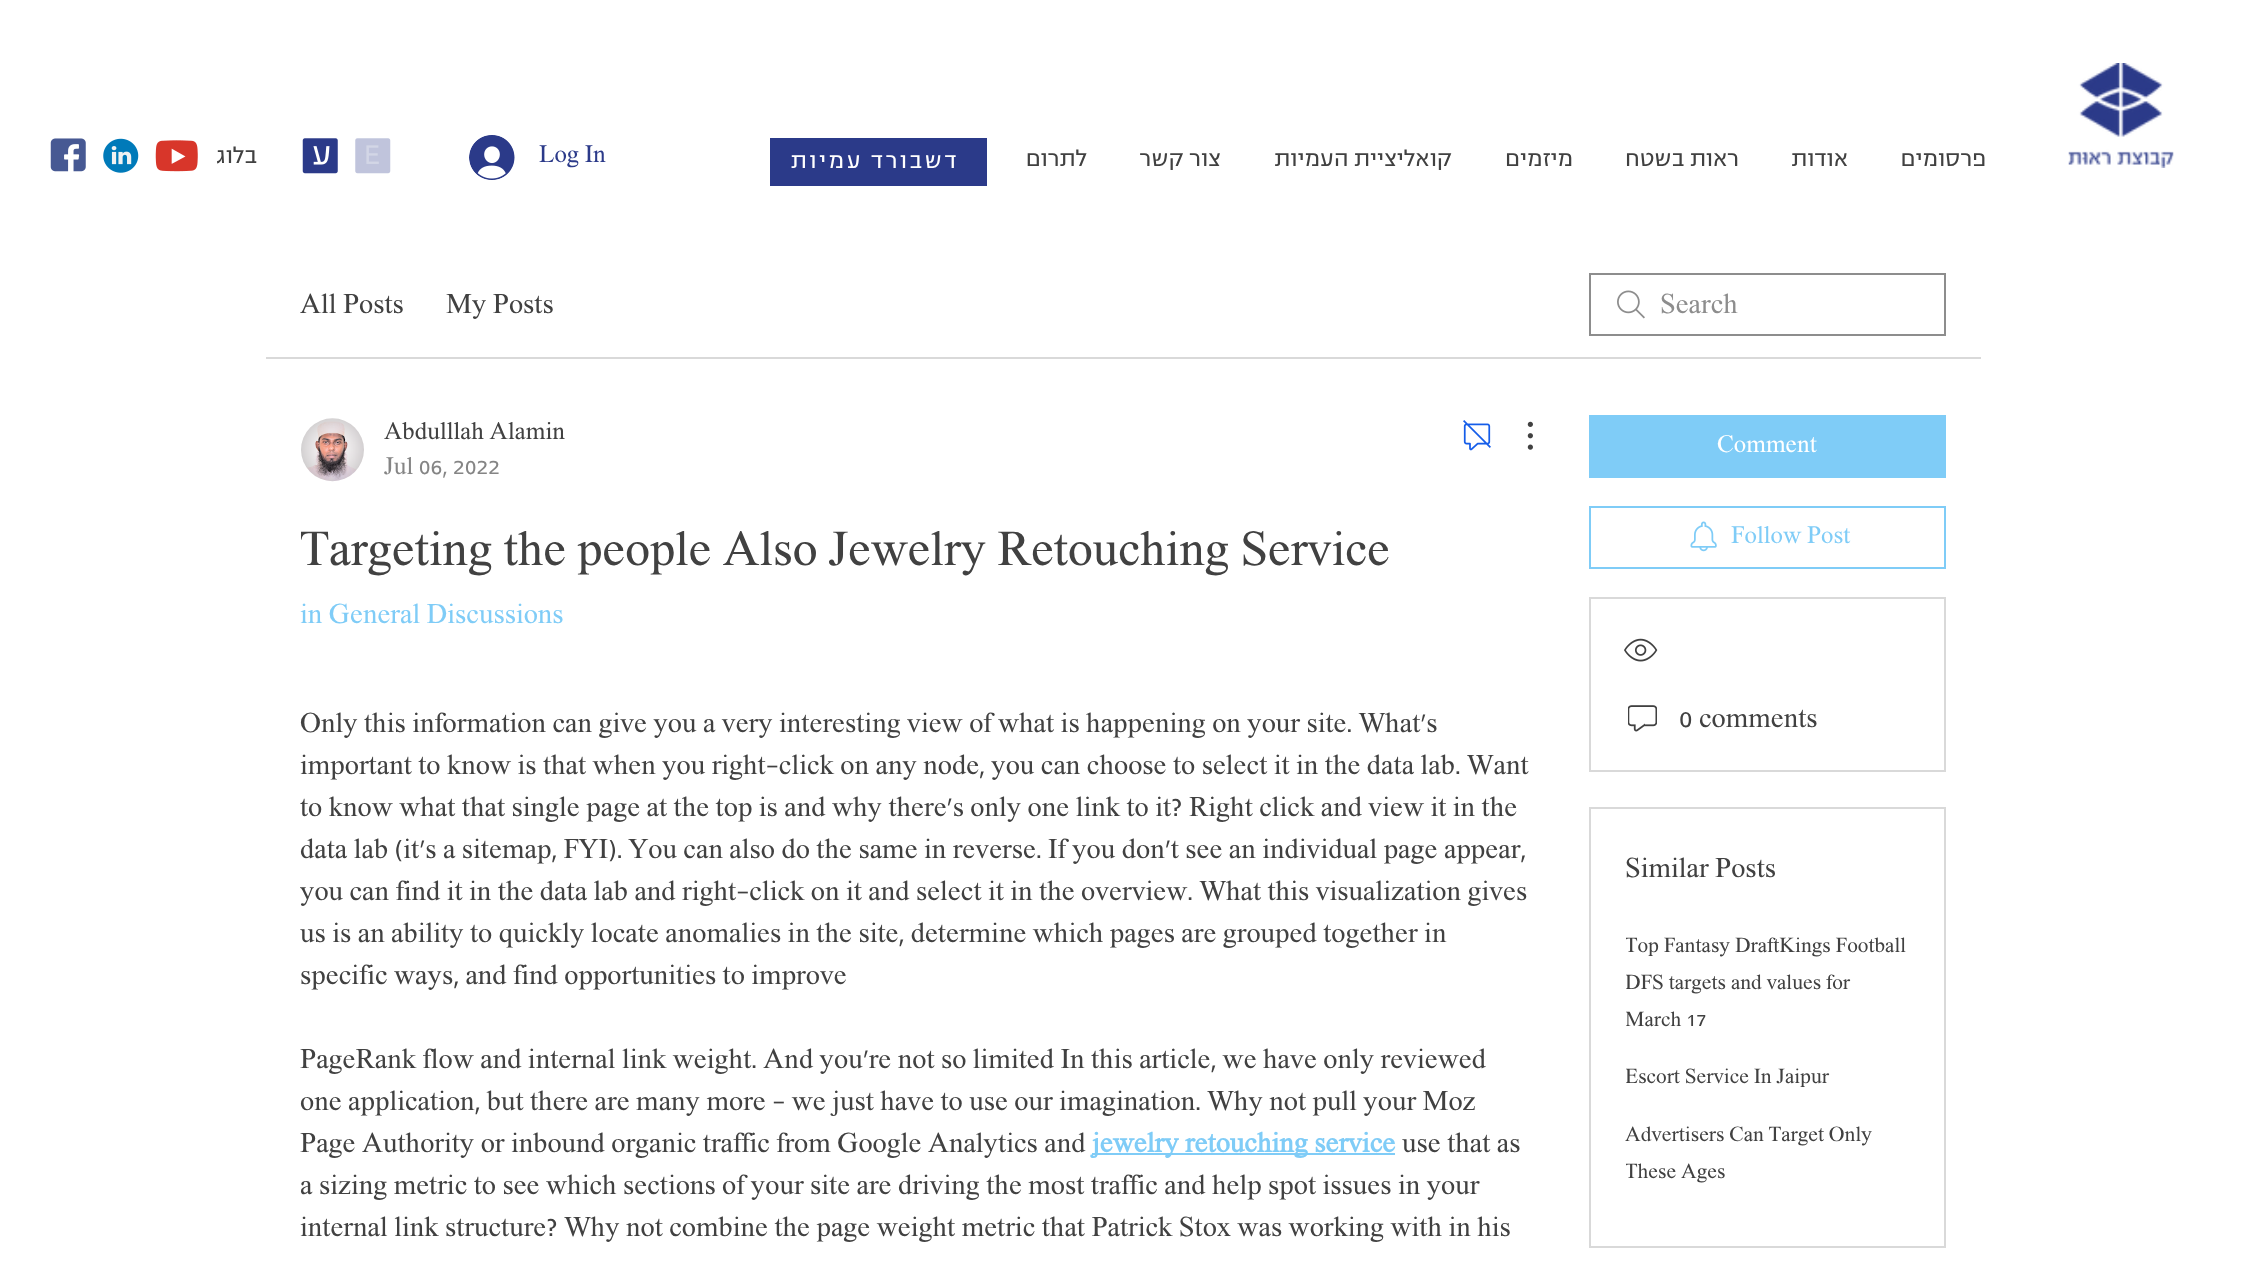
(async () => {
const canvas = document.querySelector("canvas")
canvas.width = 2245
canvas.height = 1272
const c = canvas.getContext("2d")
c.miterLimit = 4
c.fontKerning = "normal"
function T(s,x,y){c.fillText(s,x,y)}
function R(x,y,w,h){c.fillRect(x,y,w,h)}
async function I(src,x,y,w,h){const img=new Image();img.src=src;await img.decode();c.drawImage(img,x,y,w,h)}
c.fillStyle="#fff"
R(0,0,2245,1272)
await I("1.png",50,138,36,34)
await I("2.png",103,138,36,35)
await I("3.png",155,140,43,32)
c.direction="rtl"
c.font="24.5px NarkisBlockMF"
c.fillStyle="#414141"
T("בלוג",257,163)
await I("4.png",302,138,36,36)
await I("5.png",355,138,36,36)
await I("6.png",469,135,46,45)
c.direction="ltr"
c.fillStyle="#2b3a89"
T("Log In",539,162)
R(770,138,217,48)
c.letterSpacing="2.5px"
c.direction="rtl"
c.fillStyle="#fff"
T("דשבורד עמיות",959,168)
c.letterSpacing="0px"
c.fillStyle="#414141"
T("לתרום",1087,166)
T("צור קשר",1221,166)
T("קואליציית העמיות",1452,166)
T("מיזמים",1573,166)
T("ראות בשטח",1739,166)
T("אודות",1848,166)
T("פרסומים",1986,166)
await I("7.png",2068,63,106,105)
c.fillStyle="#d9d9d9"
R(266,357,1715,2)
c.direction="ltr"
c.font="28px NarkisBlockMF"
c.fillStyle="#414141"
T("All Posts",300,313)
T("My Posts",446,313)
await I("8.png",1617,290,28,29)
c.strokeStyle="#8d8d8d"
c.lineWidth=2
c.strokeRect(1590,274,355,61)
c.fillStyle="#8d8d8d"
T("Search",1660,313)
await I("9.png",301,418,63,64)
c.font="24.5px NarkisBlockMF"
c.fillStyle="#414141"
T("Abdulllah Alamin",384,439)
c.fillStyle="#858585"
T("Jul 06, 2022",384,474)
await I("10.png",1463,420,28,31)
await I("11.png",1527,421,6,29)
c.save()
c.beginPath()
c.rect(301,520,1089,63)
c.clip()
c.font="49px NarkisBlockMF"
c.fillStyle="#414141"
T("Targeting the people Also Jewelry Retouching Service",300,565)
c.restore()
c.font="28px NarkisBlockMF"
c.fillStyle="#7fccf7"
T("in General Discussions",300,623)
c.fillStyle="#414141"
T("Only this information can give you a very interesting view of what is happening on your site. What's",300,732)
T("important to know is that when you right-click on any node, you can choose to select it in the data lab. Want",300,774)
T("to know what that single page at the top is and why there's only one link to it? Right click and view it in the",300,816)
T("data lab (it's a sitemap, FYI). You can also do the same in reverse. If you don't see an individual page appear,",300,858)
T("you can find it in the data lab and right-click on it and select it in the overview. What this visualization gives",300,900)
T("us is an ability to quickly locate anomalies in the site, determine which pages are grouped together in",300,942)
T("specific ways, and find opportunities to improve",300,984)
T("PageRank flow and internal link weight. And you're not so limited In this article, we have only reviewed",300,1068)
T("one application, but there are many more - we just have to use our imagination. Why not pull your Moz",300,1110)
T("Page Authority or inbound organic traffic from Google Analytics and",300,1152)
c.fillStyle="#7fccf7"
R(1092,1153,303,2)
c.font="bold 28px NarkisBlockMF"
T("jewelry retouching service",1092,1152)
c.font="28px NarkisBlockMF"
c.fillStyle="#414141"
T("use that as",1402,1152)
T("a sizing metric to see which sections of your site are driving the most traffic and help spot issues in your",300,1194)
T("internal link structure? Why not combine the page weight metric that Patrick Stox was working with in his",300,1236)
c.fillStyle="#7fccf7"
R(1589,415,357,63)
c.font="24.5px NarkisBlockMF"
c.fillStyle="#fff"
T("Comment",1717,452)
c.strokeStyle="#7fccf7"
c.strokeRect(1590,507,355,61)
await I("12.png",1690,521,27,31)
c.fillStyle="#7fccf7"
T("Follow Post",1731,543)
c.strokeStyle="#d9d9d9"
c.strokeRect(1590,598,355,173)
await I("13.png",1624,638,34,24)
await I("14.png",1628,705,29,27)
c.font="28px NarkisBlockMF"
c.fillStyle="#414141"
T("0 comments",1679,727)
c.strokeRect(1590,808,355,439)
T("Similar Posts",1625,877)
c.save()
c.beginPath()
c.rect(1626,928,283,110)
c.clip()
c.font="21px NarkisBlockMF"
T("Top Fantasy DraftKings Football",1625,952)
T("DFS targets and values for",1625,989)
T("March 17",1625,1026)
c.restore()
c.save()
c.beginPath()
c.rect(1626,1059,283,37)
c.clip()
c.font="21px NarkisBlockMF"
T("Escort Service In Jaipur",1625,1083)
c.restore()
c.font="21px NarkisBlockMF"
T("Advertisers Can Target Only",1625,1141)
c.save()
c.beginPath()
c.rect(1626,1117,283,73)
c.clip()
T("These Ages",1625,1178)
c.restore()
})()
